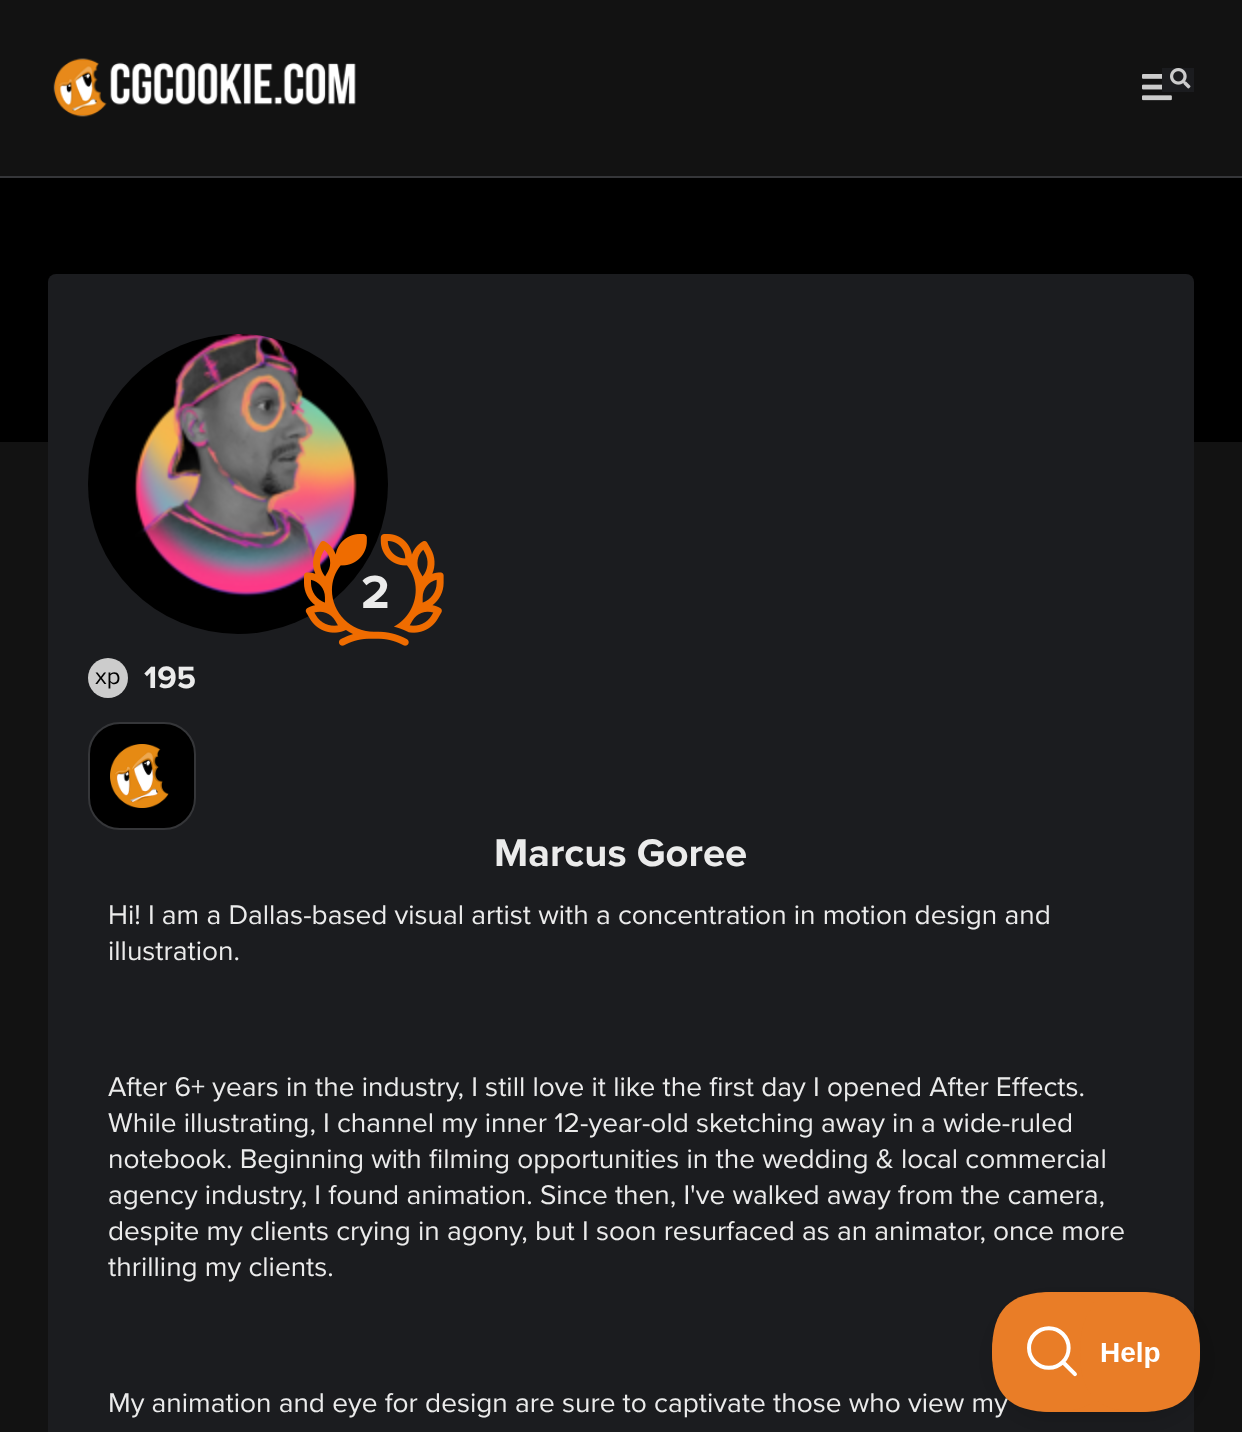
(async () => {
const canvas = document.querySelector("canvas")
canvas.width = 1242
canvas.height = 1432
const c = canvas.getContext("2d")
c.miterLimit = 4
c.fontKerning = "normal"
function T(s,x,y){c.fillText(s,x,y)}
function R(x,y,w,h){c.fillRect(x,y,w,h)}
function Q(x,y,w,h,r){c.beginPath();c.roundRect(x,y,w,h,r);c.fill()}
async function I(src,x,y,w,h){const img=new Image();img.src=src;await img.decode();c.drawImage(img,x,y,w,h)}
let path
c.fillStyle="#121212"
R(0,0,1242,1432)
c.fillStyle="#353639"
R(0,176,1242,2)
await I("1.png",53,58,303,59)
await I("2.png",1142,74,30,27)
c.fillStyle="#1b1c1f"
R(1162,68,32,24)
await I("3.png",1170,68,21,21)
c.fillStyle="#000"
R(0,178,1242,264)
c.fillStyle="#1b1c1f"
Q(48,274,1146,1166,8)
await I("4.png",88,334,300,300)
await I("5.png",304,534,140,112)
c.font="bold 48px Proxima Nova"
c.fillStyle="#ebebeb"
T("2",361,608)
c.fillStyle="#ccc"
c.beginPath()
c.arc(108,678,20,0,7)
c.fill()
c.font="24px Proxima Nova"
c.fillStyle="#000"
T("xp",95,684)
c.font="bold 32px Proxima Nova"
c.fillStyle="#ebebeb"
T("195",144,688)
c.fillStyle="#000"
c.beginPath()
c.roundRect(89,723,106,106,31)
c.fill()
c.strokeStyle="#353639"
c.lineWidth=2
c.stroke()
await I("6.png",110,744,59,64)
c.font="bold 40px Proxima Nova"
c.fillStyle="#ebebeb"
T("Marcus Goree",494,866)
c.font="28px Proxima Nova"
T("Hi! I am a Dallas-based visual artist with a concentration in motion design and",108,924)
T("illustration.",108,960)
T("After 6+ years in the industry, I still love it like the first day I opened After Effects.",108,1096)
T("While illustrating, I channel my inner 12-year-old sketching away in a wide-ruled",108,1132)
T("notebook. Beginning with filming opportunities in the wedding & local commercial",108,1168)
T("agency industry, I found animation. Since then, I've walked away from the camera,",108,1204)
T("despite my clients crying in agony, but I soon resurfaced as an animator, once more",108,1240)
T("thrilling my clients.",108,1276)
T("My animation and eye for design are sure to captivate those who view my",108,1412)
c.save()
path = new Path2D("M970 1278h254v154h-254zm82 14h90c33 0 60 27 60 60c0 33-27 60-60 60h-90c-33 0-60-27-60-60c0-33 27-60 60-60z")
c.clip(path,"evenodd")
c.fillStyle="#0000001a"
c.filter="blur(7px)"
c.beginPath()
c.roundRect(992,1300,210,120,60)
c.fill()
c.filter="none"
c.restore()
await I("7.png",992,1292,208,120)
})()
